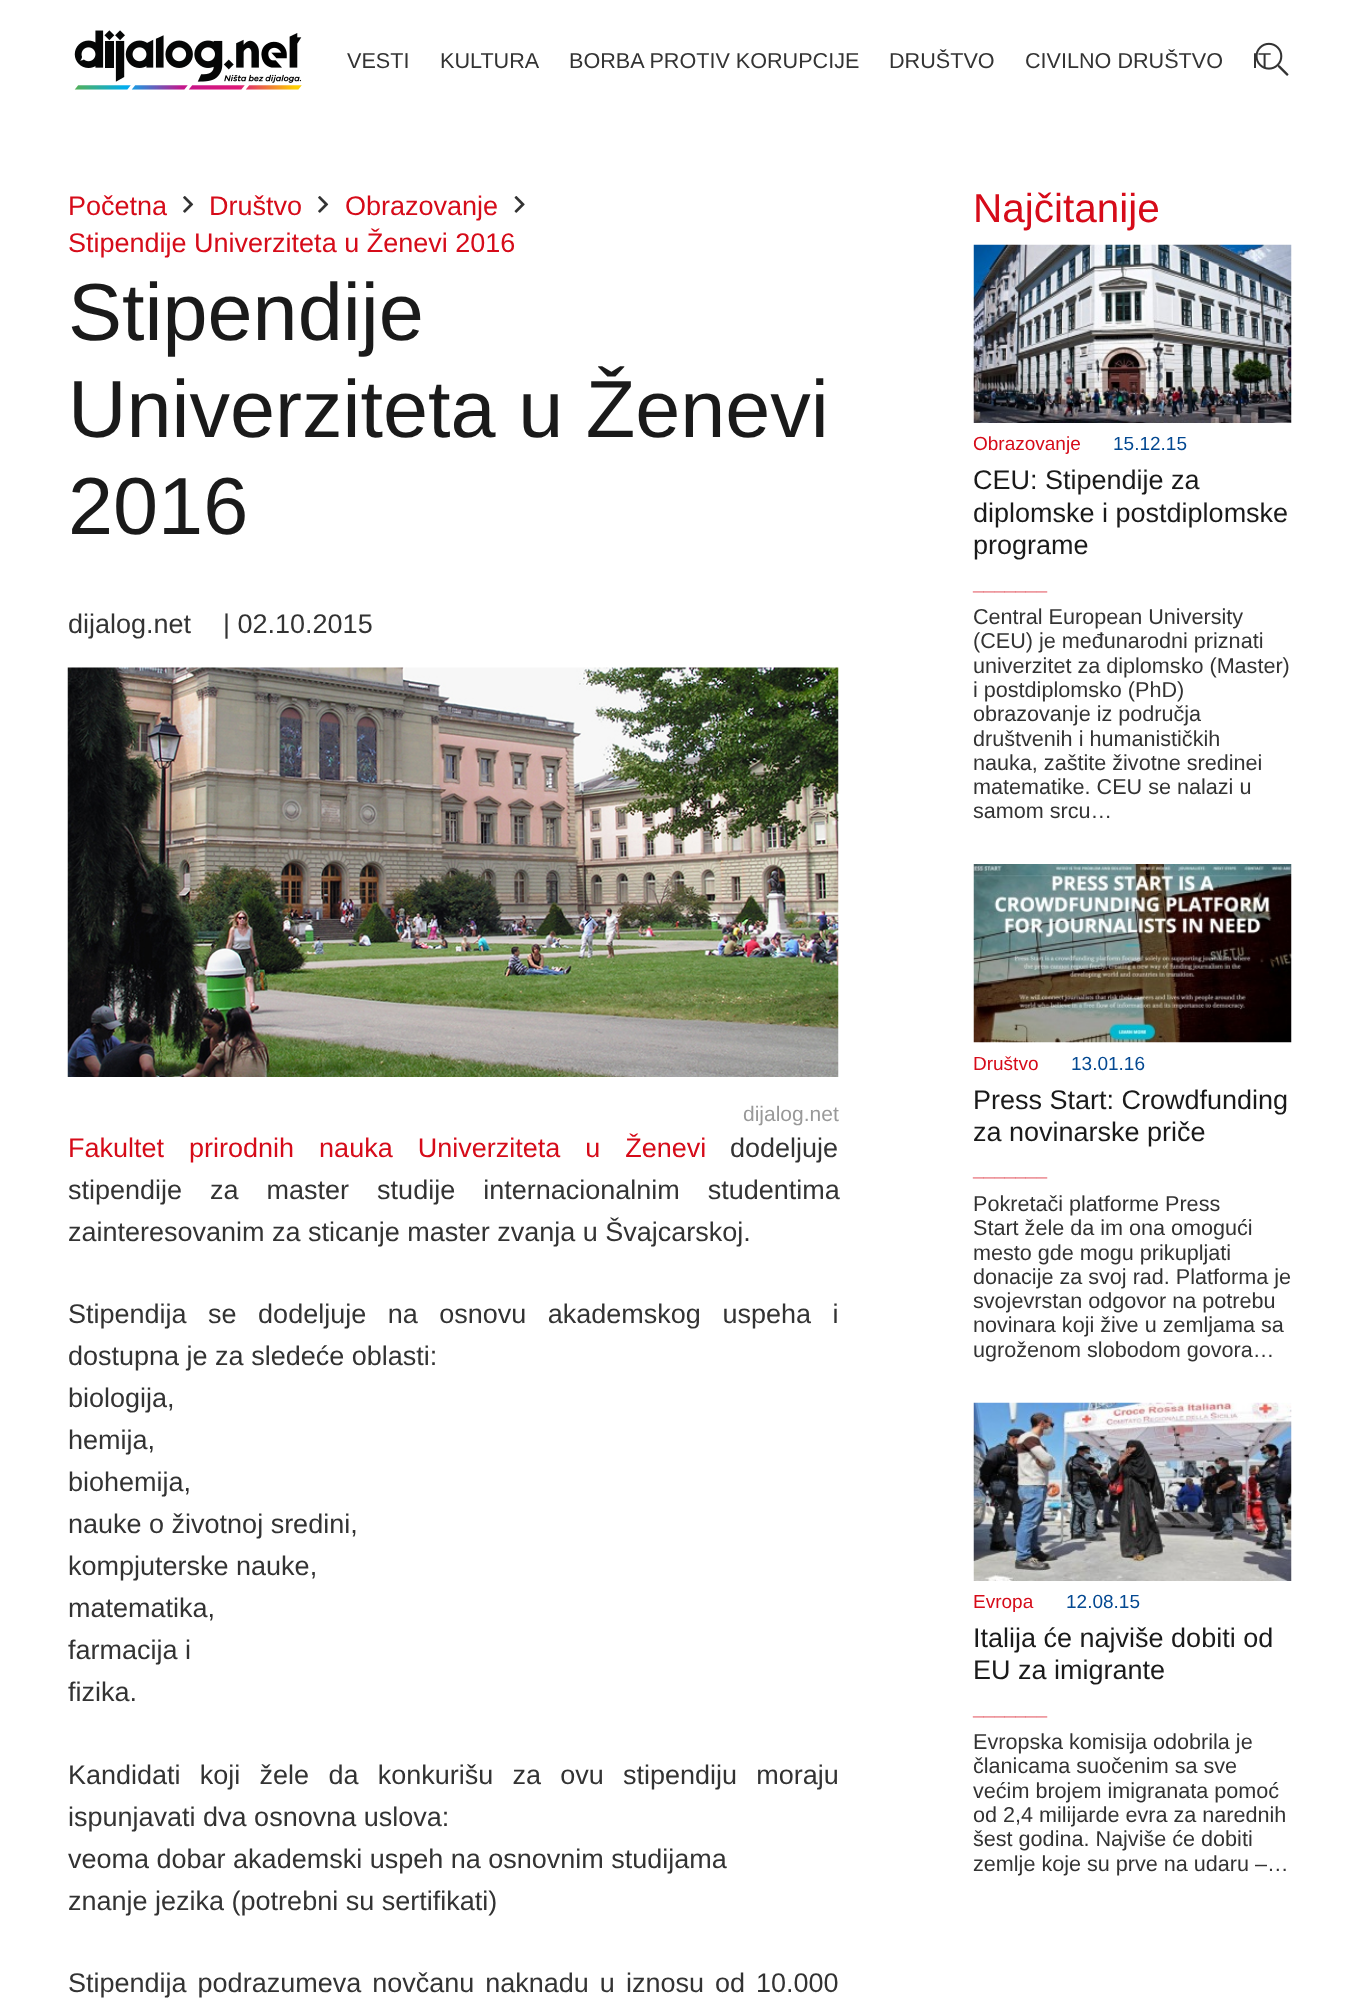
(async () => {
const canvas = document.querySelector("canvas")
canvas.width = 1359
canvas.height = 2002
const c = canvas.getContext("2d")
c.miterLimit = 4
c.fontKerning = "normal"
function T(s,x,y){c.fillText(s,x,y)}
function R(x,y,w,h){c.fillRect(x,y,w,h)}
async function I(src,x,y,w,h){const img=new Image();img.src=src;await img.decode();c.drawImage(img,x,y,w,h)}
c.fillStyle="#fff"
R(0,0,1359,2002)
await I("1.png",74,30,228,60)
c.font="21.6px Liberation Sans"
c.fillStyle="#333"
T("IT",1252,68)
await I("2.png",1255,42,34,34)
T("VESTI",347,68)
T("KULTURA",440,68)
T("BORBA PROTIV KORUPCIJE",569,68)
T("DRUŠTVO",889,68)
T("CIVILNO DRUŠTVO",1025,68)
c.font="27px Liberation Sans"
c.fillStyle="#d60b19"
T("Početna",68,215)
await I("3.png",183,196,11,17)
T("Društvo",209,215)
await I("3.png",318,196,11,17)
T("Obrazovanje",345,215)
await I("4.png",514,196,11,17)
T("Stipendije Univerziteta u Ženevi 2016",68,252)
c.font="81px Liberation Sans"
c.fillStyle="#1a1a1a"
T("Stipendije",68,340)
T("Univerziteta u Ženevi",68,437)
T("2016",68,534)
c.font="27px Liberation Sans"
c.fillStyle="#333"
T("dijalog.net",68,633)
T("| 02.10.2015",223,633)
await I("5.png",67,667,772,410)
c.font="21px Liberation Sans"
c.fillStyle="#999"
T("dijalog.net",743,1121)
c.wordSpacing="17.5px"
c.font="27px Liberation Sans"
c.fillStyle="#d60b19"
T("Fakultet prirodnih nauka Univerziteta u Ženevi",68,1157)
c.wordSpacing="0px"
c.fillStyle="#333"
T("dodeljuje",730,1157)
c.wordSpacing="20.5px"
T("stipendije za master studije internacionalnim studentima",68,1199)
c.wordSpacing="0px"
T("zainteresovanim za sticanje master zvanja u Švajcarskoj.",68,1241)
c.wordSpacing="14px"
T("Stipendija se dodeljuje na osnovu akademskog uspeha i",68,1323)
c.wordSpacing="0px"
T("dostupna je za sledeće oblasti:",68,1365)
T("biologija,",68,1407)
T("hemija,",68,1449)
T("biohemija,",68,1491)
T("nauke o životnoj sredini,",68,1533)
T("kompjuterske nauke,",68,1575)
T("matematika,",68,1617)
T("farmacija i",68,1659)
T("fizika.",68,1701)
c.wordSpacing="11.75px"
T("Kandidati koji žele da konkurišu za ovu stipendiju moraju",68,1784)
c.wordSpacing="0px"
T("ispunjavati dva osnovna uslova:",68,1826)
T("veoma dobar akademski uspeh na osnovnim studijama",68,1868)
T("znanje jezika (potrebni su sertifikati)",68,1910)
c.wordSpacing="3.5px"
T("Stipendija podrazumeva novčanu naknadu u iznosu od 10.000",68,1992)
c.wordSpacing="0px"
c.font="40.5px Liberation Sans"
c.fillStyle="#d60b19"
T("Najčitanije",973,222)
await I("6.png",973,244,319,179)
c.font="19px Liberation Sans"
T("Obrazovanje",973,450)
c.fillStyle="#034891"
T("15.12.15",1113,450)
c.font="27px Liberation Sans"
c.fillStyle="#1a1a1a"
T("CEU: Stipendije za",973,489)
T("diplomske i postdiplomske",973,522)
T("programe",973,554)
c.font="bold 19px Liberation Sans"
c.fillStyle="#d60b19"
T("_______",973,590)
c.font="21.6px Liberation Sans"
c.fillStyle="#333"
T("Central European University",973,624)
T("(CEU) je međunarodni priznati",973,648)
T("univerzitet za diplomsko (Master)",973,673)
T("i postdiplomsko (PhD)",973,697)
T("obrazovanje iz područja",973,721)
T("društvenih i humanističkih",973,746)
T("nauka, zaštite životne sredinei",973,770)
T("matematike. CEU se nalazi u",973,794)
T("samom srcu…",973,818)
await I("7.png",973,864,319,179)
c.font="19px Liberation Sans"
c.fillStyle="#d60b19"
T("Društvo",973,1070)
c.fillStyle="#034891"
T("13.01.16",1071,1070)
c.font="27px Liberation Sans"
c.fillStyle="#1a1a1a"
T("Press Start: Crowdfunding",973,1109)
T("za novinarske priče",973,1141)
c.font="bold 19px Liberation Sans"
c.fillStyle="#d60b19"
T("_______",973,1176)
c.font="21.6px Liberation Sans"
c.fillStyle="#333"
T("Pokretači platforme Press",973,1211)
T("Start žele da im ona omogući",973,1235)
T("mesto gde mogu prikupljati",973,1260)
T("donacije za svoj rad. Platforma je",973,1284)
T("svojevrstan odgovor na potrebu",973,1308)
T("novinara koji žive u zemljama sa",973,1332)
T("ugroženom slobodom govora…",973,1357)
await I("8.png",973,1402,319,179)
c.font="19px Liberation Sans"
c.fillStyle="#d60b19"
T("Evropa",973,1608)
c.fillStyle="#034891"
T("12.08.15",1066,1608)
c.font="27px Liberation Sans"
c.fillStyle="#1a1a1a"
T("Italija će najviše dobiti od",973,1647)
T("EU za imigrante",973,1679)
c.font="bold 19px Liberation Sans"
c.fillStyle="#d60b19"
T("_______",973,1715)
c.font="21.6px Liberation Sans"
c.fillStyle="#333"
T("Evropska komisija odobrila je",973,1749)
T("članicama suočenim sa sve",973,1773)
T("većim brojem imigranata pomoć",973,1798)
T("od 2,4 milijarde evra za narednih",973,1822)
T("šest godina. Najviše će dobiti",973,1846)
T("zemlje koje su prve na udaru –…",973,1871)
})()
